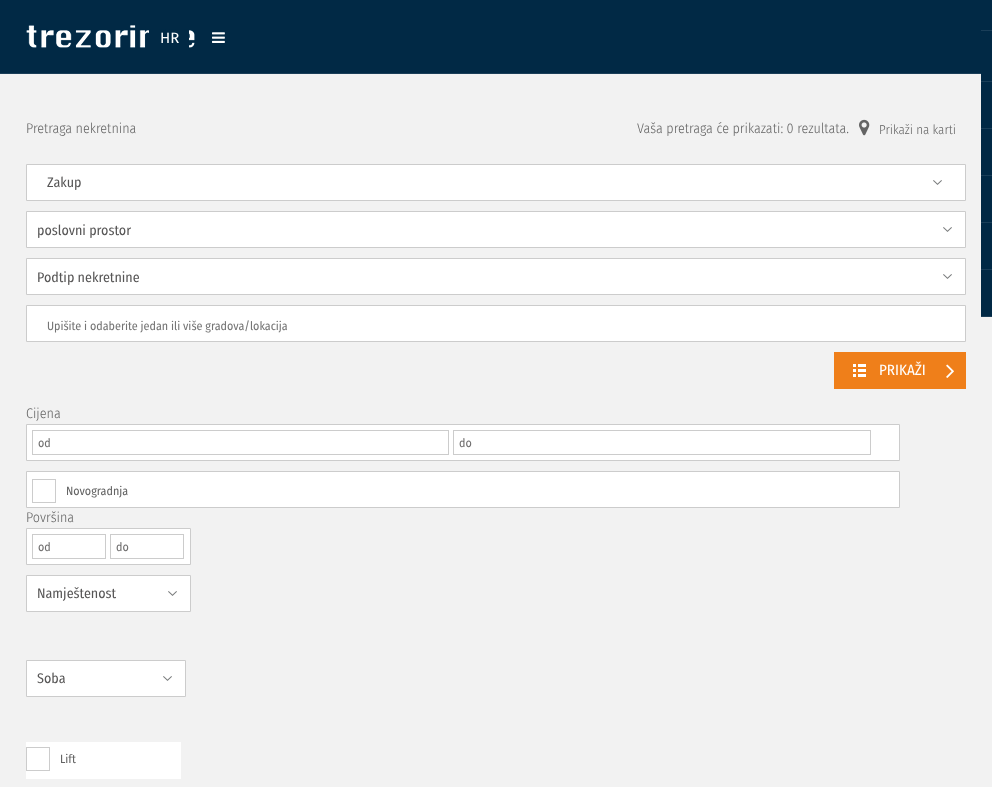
(async () => {
const canvas = document.querySelector("canvas")
canvas.width = 992
canvas.height = 787
const c = canvas.getContext("2d")
c.miterLimit = 4
c.fontKerning = "normal"
function T(s,x,y){c.fillText(s,x,y)}
function R(x,y,w,h){c.fillRect(x,y,w,h)}
async function I(src,x,y,w,h){const img=new Image();img.src=src;await img.decode();c.drawImage(img,x,y,w,h)}
c.fillStyle="#f2f2f2"
R(0,0,992,787)
c.fillStyle="#012945"
R(0,0,992,73)
c.fillStyle="#1a3e58"
R(0,73,981,1)
await I("1.png",26,25,169,23)
c.fillStyle="#012945"
R(149,30,40,18)
c.font="15px Fira Sans"
c.fillStyle="#fff"
T("HR",160,43)
await I("2.png",212,32,13,11)
c.fillStyle="#1a3e58"
R(981,30,11,1)
c.fillStyle="#012945"
R(981,73,11,243)
c.fillStyle="#1a3e58"
R(981,81,11,1)
R(981,128,11,1)
R(981,175,11,1)
R(981,222,11,1)
R(981,269,11,1)
R(981,316,11,1)
c.font="300 14px Fira Sans Condensed"
c.fillStyle="#646464"
T("Pretraga nekretnina",26,133)
T("Vaša pretraga će prikazati: 0 rezultata.",637,133)
await I("3.png",859,119,11,17)
c.font="300 13px Fira Sans Condensed"
T("Prikaži na karti",879,134)
c.fillStyle="#fff"
c.beginPath()
c.rect(26.5,164.5,939,36)
c.fill()
c.strokeStyle="#ccc"
c.stroke()
c.font="14px Fira Sans Condensed"
c.fillStyle="#575656"
T("Zakup",47,187)
await I("4.png",933,180,9,5)
c.fillStyle="#fff"
c.beginPath()
c.rect(26.5,211.5,939,36)
c.fill()
c.stroke()
c.fillStyle="#575656"
T("poslovni prostor",37,235)
await I("4.png",943,227,9,5)
c.fillStyle="#fff"
c.beginPath()
c.rect(26.5,258.5,939,36)
c.fill()
c.stroke()
c.fillStyle="#575656"
T("Podtip nekretnine",37,282)
await I("4.png",943,274,9,5)
c.fillStyle="#fff"
c.beginPath()
c.rect(26.5,305.5,939,36)
c.fill()
c.stroke()
c.font="12px Fira Sans Condensed"
c.fillStyle="#757575"
T("Upišite i odaberite jedan ili više gradova/lokacija",47,330)
c.fillStyle="#ef7f1a"
R(834,352,132,37)
await I("5.png",853,364,13,13)
c.font="15px Fira Sans Condensed"
c.fillStyle="#fff"
T("PRIKAŽI",879,375)
await I("6.png",946,364,8,14)
c.font="300 14px Fira Sans Condensed"
c.fillStyle="#646464"
T("Cijena",26,418)
c.fillStyle="#fff"
c.beginPath()
c.rect(26.5,424.5,873,36)
c.fill()
c.stroke()
c.strokeRect(32.5,430.5,416,24)
c.font="12px Fira Sans Condensed"
c.fillStyle="#706f6f"
T("od",38,447)
c.strokeRect(453.5,430.5,417,24)
T("do",459,447)
c.fillStyle="#fff"
c.beginPath()
c.rect(26.5,471.5,873,36)
c.fill()
c.stroke()
c.strokeRect(32.5,479.5,23,23)
c.fillStyle="#646464"
T("Novogradnja",66,495)
c.font="300 14px Fira Sans Condensed"
T("Površina",26,522)
c.fillStyle="#fff"
c.beginPath()
c.rect(26.5,528.5,164,36)
c.fill()
c.stroke()
c.strokeRect(32.5,534.5,73,24)
c.font="12px Fira Sans Condensed"
c.fillStyle="#706f6f"
T("od",38,551)
c.strokeRect(110.5,534.5,73,24)
T("do",116,551)
c.fillStyle="#fff"
c.beginPath()
c.rect(26.5,575.5,164,36)
c.fill()
c.stroke()
c.font="14px Fira Sans Condensed"
c.fillStyle="#575656"
T("Namještenost",37,598)
await I("4.png",168,591,9,5)
c.fillStyle="#fff"
c.beginPath()
c.rect(26.5,660.5,159,36)
c.fill()
c.stroke()
c.fillStyle="#575656"
T("Soba",37,683)
await I("4.png",163,676,9,5)
c.fillStyle="#fff"
R(26,742,155,37)
c.strokeRect(26.5,747.5,23,23)
c.font="12px Fira Sans Condensed"
c.fillStyle="#646464"
T("Lift",60,763)
})()
